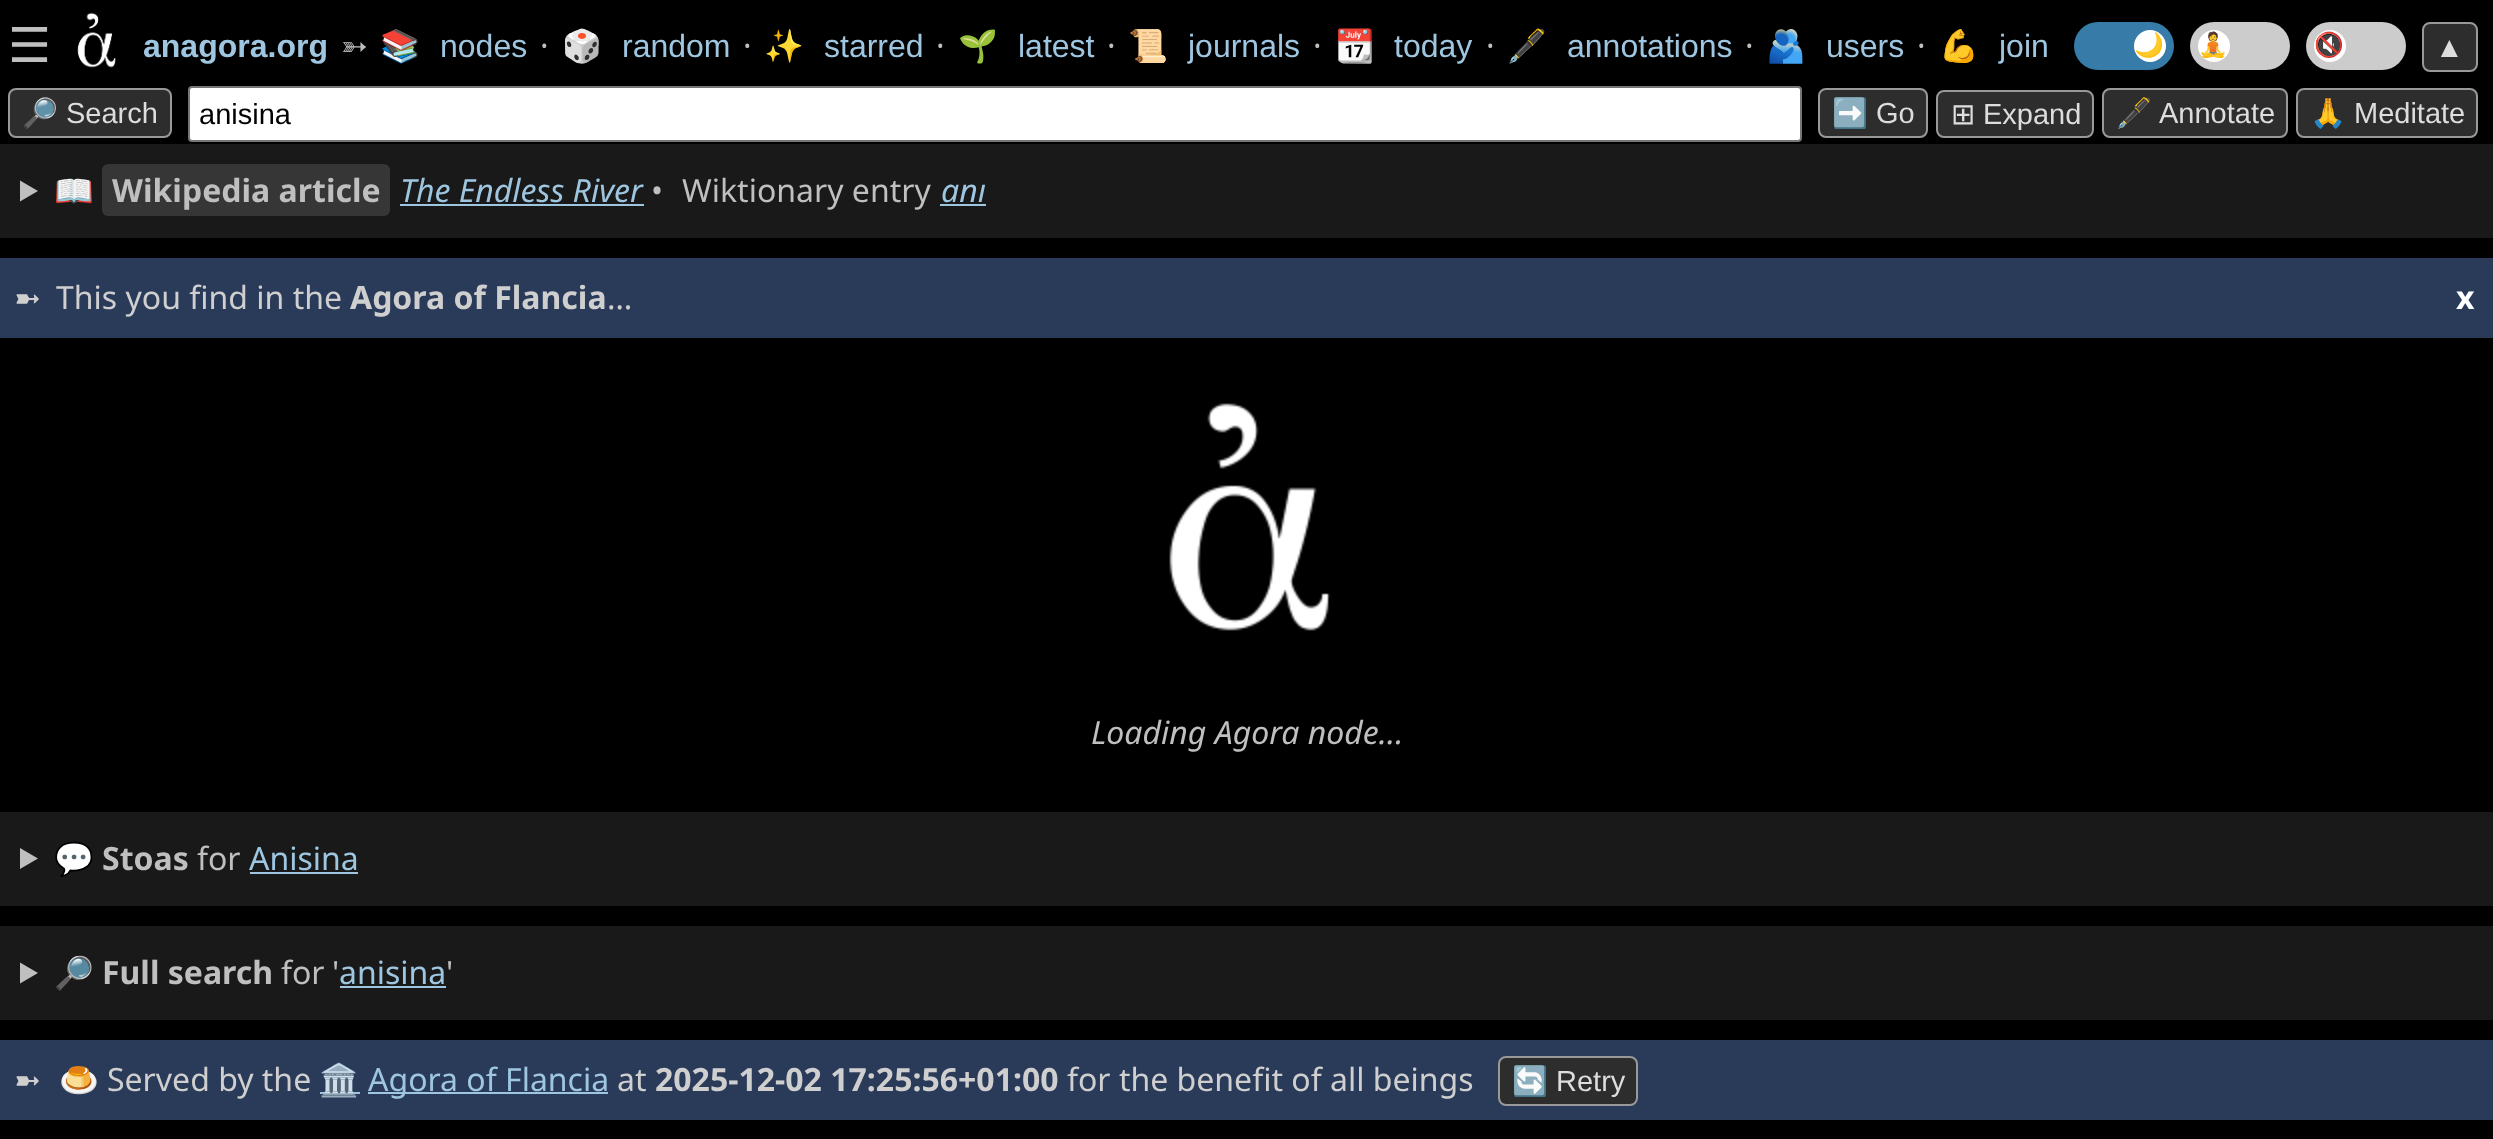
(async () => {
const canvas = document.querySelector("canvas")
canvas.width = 2493
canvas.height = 1139
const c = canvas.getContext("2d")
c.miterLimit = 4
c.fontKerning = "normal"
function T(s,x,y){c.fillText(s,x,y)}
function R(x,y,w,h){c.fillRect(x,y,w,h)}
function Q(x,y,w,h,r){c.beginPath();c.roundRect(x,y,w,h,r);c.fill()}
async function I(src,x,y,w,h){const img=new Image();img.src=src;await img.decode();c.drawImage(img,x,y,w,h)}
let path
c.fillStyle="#000"
R(0,0,2493,1139)
c.font="48px DejaVu Sans"
c.fillStyle="#bfbfbf"
T("☰",8,62)
await I("1.png",77,12,39,56)
c.font="bold 32px Liberation Sans"
c.fillStyle="#9fc6e0"
T("anagora.org",143,57)
c.font="32px DejaVu Sans"
c.fillStyle="#bfbfbf"
T("➳",341,57)
c.font="32px Noto Color Emoji"
c.fillStyle="#9fc6e0"
T("📚",380,57)
c.font="32px Liberation Sans"
T("nodes",440,57)
c.font="32px Noto Sans"
c.fillStyle="#bfbfbf"
T("⸱",540,57)
c.font="32px Noto Color Emoji"
c.fillStyle="#9fc6e0"
T("🎲️",562,57)
c.font="32px Liberation Sans"
T("random",622,57)
c.font="32px Noto Sans"
c.fillStyle="#bfbfbf"
T("⸱",743,57)
c.font="32px Noto Color Emoji"
c.fillStyle="#9fc6e0"
T("✨",764,57)
c.font="32px Liberation Sans"
T("starred",824,57)
c.font="32px Noto Sans"
c.fillStyle="#bfbfbf"
T("⸱",936,57)
c.font="32px Noto Color Emoji"
c.fillStyle="#9fc6e0"
T("🌱",958,57)
c.font="32px Liberation Sans"
T("latest",1018,57)
c.font="32px Noto Sans"
c.fillStyle="#bfbfbf"
T("⸱",1107,57)
c.font="32px Noto Color Emoji"
c.fillStyle="#9fc6e0"
T("📜",1128,57)
c.font="32px Liberation Sans"
T("journals",1188,57)
c.font="32px Noto Sans"
c.fillStyle="#bfbfbf"
T("⸱",1313,57)
c.font="32px Noto Color Emoji"
c.fillStyle="#9fc6e0"
T("📆",1335,57)
c.font="32px Liberation Sans"
T("today",1394,57)
c.font="32px Noto Sans"
c.fillStyle="#bfbfbf"
T("⸱",1486,57)
c.font="32px Noto Color Emoji"
c.fillStyle="#9fc6e0"
T("🖋️",1507,57)
c.font="32px Liberation Sans"
T("annotations",1567,57)
c.font="32px Noto Sans"
c.fillStyle="#bfbfbf"
T("⸱",1745,57)
c.font="32px Noto Color Emoji"
c.fillStyle="#9fc6e0"
T("🫂",1766,57)
c.font="32px Liberation Sans"
T("users",1826,57)
c.font="32px Noto Sans"
c.fillStyle="#bfbfbf"
T("⸱",1917,57)
c.font="32px Noto Color Emoji"
c.fillStyle="#9fc6e0"
T("💪",1939,57)
c.font="32px Liberation Sans"
T("join",1999,57)
c.fillStyle="#377ba8"
Q(2074,22,100,48,24)
c.fillStyle="#fff"
c.beginPath()
c.arc(2150,46,16,0,7)
c.fill()
c.font="24px Noto Color Emoji"
c.fillStyle="#bfbfbf"
T("🌙",2134,53)
c.fillStyle="#ccc"
Q(2190,22,100,48,24)
c.fillStyle="#fff"
c.beginPath()
c.arc(2214,46,16,0,7)
c.fill()
c.fillStyle="#bfbfbf"
T("🧘",2198,53)
c.fillStyle="#ccc"
Q(2306,22,100,48,24)
c.fillStyle="#fff"
c.beginPath()
c.arc(2330,46,16,0,7)
c.fill()
c.fillStyle="#bfbfbf"
T("🔇",2314,53)
c.fillStyle="#2d2d2d"
c.beginPath()
c.roundRect(2423,23,54,48,7)
c.fill()
c.strokeStyle="#999"
c.lineWidth=2
c.stroke()
c.font="29px Liberation Sans"
c.fillStyle="#ddd"
T("▲",2435,57)
c.fillStyle="#2d2d2d"
c.beginPath()
c.roundRect(9,89,162,48,7)
c.fill()
c.stroke()
c.font="29px Noto Color Emoji"
c.fillStyle="#ddd"
T("🔎",22,123)
c.font="29px Liberation Sans"
T("Search",66,123)
c.fillStyle="#fff"
c.beginPath()
c.roundRect(189,87,1612,54,3)
c.fill()
c.strokeStyle="#767676"
c.stroke()
c.fillStyle="#000"
T("anisina",199,124)
c.fillStyle="#2d2d2d"
c.beginPath()
c.roundRect(1819,89,108,48,7)
c.fill()
c.strokeStyle="#999"
c.stroke()
c.font="29px Noto Color Emoji"
c.fillStyle="#ddd"
T("➡️",1832,123)
c.font="29px Liberation Sans"
T("Go",1876,123)
c.fillStyle="#2d2d2d"
c.beginPath()
c.roundRect(1937,91,156,46,7)
c.fill()
c.stroke()
c.font="29px DejaVu Sans"
c.fillStyle="#ddd"
T("⊞",1951,124)
c.font="29px Liberation Sans"
T("Expand",1983,124)
c.fillStyle="#2d2d2d"
c.beginPath()
c.roundRect(2103,89,184,48,7)
c.fill()
c.stroke()
c.font="29px Noto Color Emoji"
c.fillStyle="#ddd"
T("🖋️",2116,123)
c.font="29px Liberation Sans"
T("Annotate",2159,123)
c.fillStyle="#2d2d2d"
c.beginPath()
c.roundRect(2297,89,180,48,7)
c.fill()
c.stroke()
c.font="29px Noto Color Emoji"
c.fillStyle="#ddd"
T("🙏",2310,123)
c.font="29px Liberation Sans"
T("Meditate",2354,123)
c.fillStyle="#191919"
R(0,144,2493,94)
c.fillStyle="#bfbfbf"
path = new Path2D("M20 180.5l18 10.5l-18 10.5z")
c.fill(path)
c.font="bold 32px Noto Color Emoji"
T("📖",54,202)
c.fillStyle="#363636"
Q(102,164,288,52,6)
c.font="bold 32px Noto Sans"
c.fillStyle="#bfbfbf"
T("Wikipedia article",112,202)
c.font="italic 32px Noto Sans"
c.fillStyle="#9fc6e0"
T("The Endless River",400,202)
R(400,204,244,2)
c.font="32px Noto Sans"
c.fillStyle="#bfbfbf"
T("•",651,202)
T("Wiktionary entry",682,202)
c.font="italic 32px Noto Sans"
c.fillStyle="#9fc6e0"
T("anı",941,202)
R(940,204,46,2)
c.fillStyle="#2a3a59"
R(0,258,2493,80)
c.font="32px DejaVu Sans"
c.fillStyle="#cfcfcf"
T("➼",14,309)
c.font="32px Noto Sans"
T("This you find in the",56,309)
c.font="bold 32px Noto Sans"
T("Agora of Flancia",350,309)
c.font="32px Noto Sans"
T("…",607,309)
c.font="bold 32px Noto Sans"
c.fillStyle="#fff"
T("x",2456,309)
await I("2.png",1169,403,162,228)
c.font="italic 32px Noto Sans"
c.fillStyle="#bfbfbf"
T("Loading Agora node...",1091,744)
c.fillStyle="#191919"
R(0,812,2493,94)
c.fillStyle="#bfbfbf"
path = new Path2D("M20 848l18 10.5l-18 10.5z")
c.fill(path)
c.font="bold 32px Noto Color Emoji"
T("💬",54,870)
c.font="bold 32px Noto Sans"
T("Stoas",102,870)
c.font="32px Noto Sans"
T("for",197,870)
c.fillStyle="#9fc6e0"
T("Anisina",249,870)
R(250,872,108,2)
c.fillStyle="#191919"
R(0,926,2493,94)
c.fillStyle="#bfbfbf"
path = new Path2D("M20 962.5l18 10.5l-18 10.5z")
c.fill(path)
c.font="bold 32px Noto Color Emoji"
T("🔎",54,984)
c.font="bold 32px Noto Sans"
T("Full search",102,984)
c.wordSpacing="-1px"
c.font="32px Noto Sans"
T("for '",281,984)
c.wordSpacing="0px"
c.fillStyle="#9fc6e0"
T("anisina",339,984)
R(340,986,106,2)
c.fillStyle="#bfbfbf"
T("'",446,984)
c.fillStyle="#2a3a59"
R(0,1040,2493,80)
c.font="32px DejaVu Sans"
c.fillStyle="#cfcfcf"
T("➼",14,1091)
c.font="32px Noto Color Emoji"
T("🍮",59,1091)
c.font="32px Noto Sans"
T("Served by the",107,1091)
c.fillStyle="#9fc6e0"
R(320,1092,40,2)
c.font="32px Noto Color Emoji"
T("🏛️",319,1091)
R(368,1092,240,2)
c.font="32px Noto Sans"
T("Agora of Flancia",368,1091)
c.fillStyle="#cfcfcf"
T("at",617,1091)
c.font="bold 32px Noto Sans"
T("2025-12-02 17:25:56+01:00",655,1091)
c.font="32px Noto Sans"
T("for the benefit of all beings",1067,1091)
c.fillStyle="#2d2d2d"
c.beginPath()
c.roundRect(1499,1057,138,48,7)
c.fill()
c.stroke()
c.font="29px Noto Color Emoji"
c.fillStyle="#ddd"
T("🔄",1512,1091)
c.font="29px Liberation Sans"
T("Retry",1556,1091)
})()
